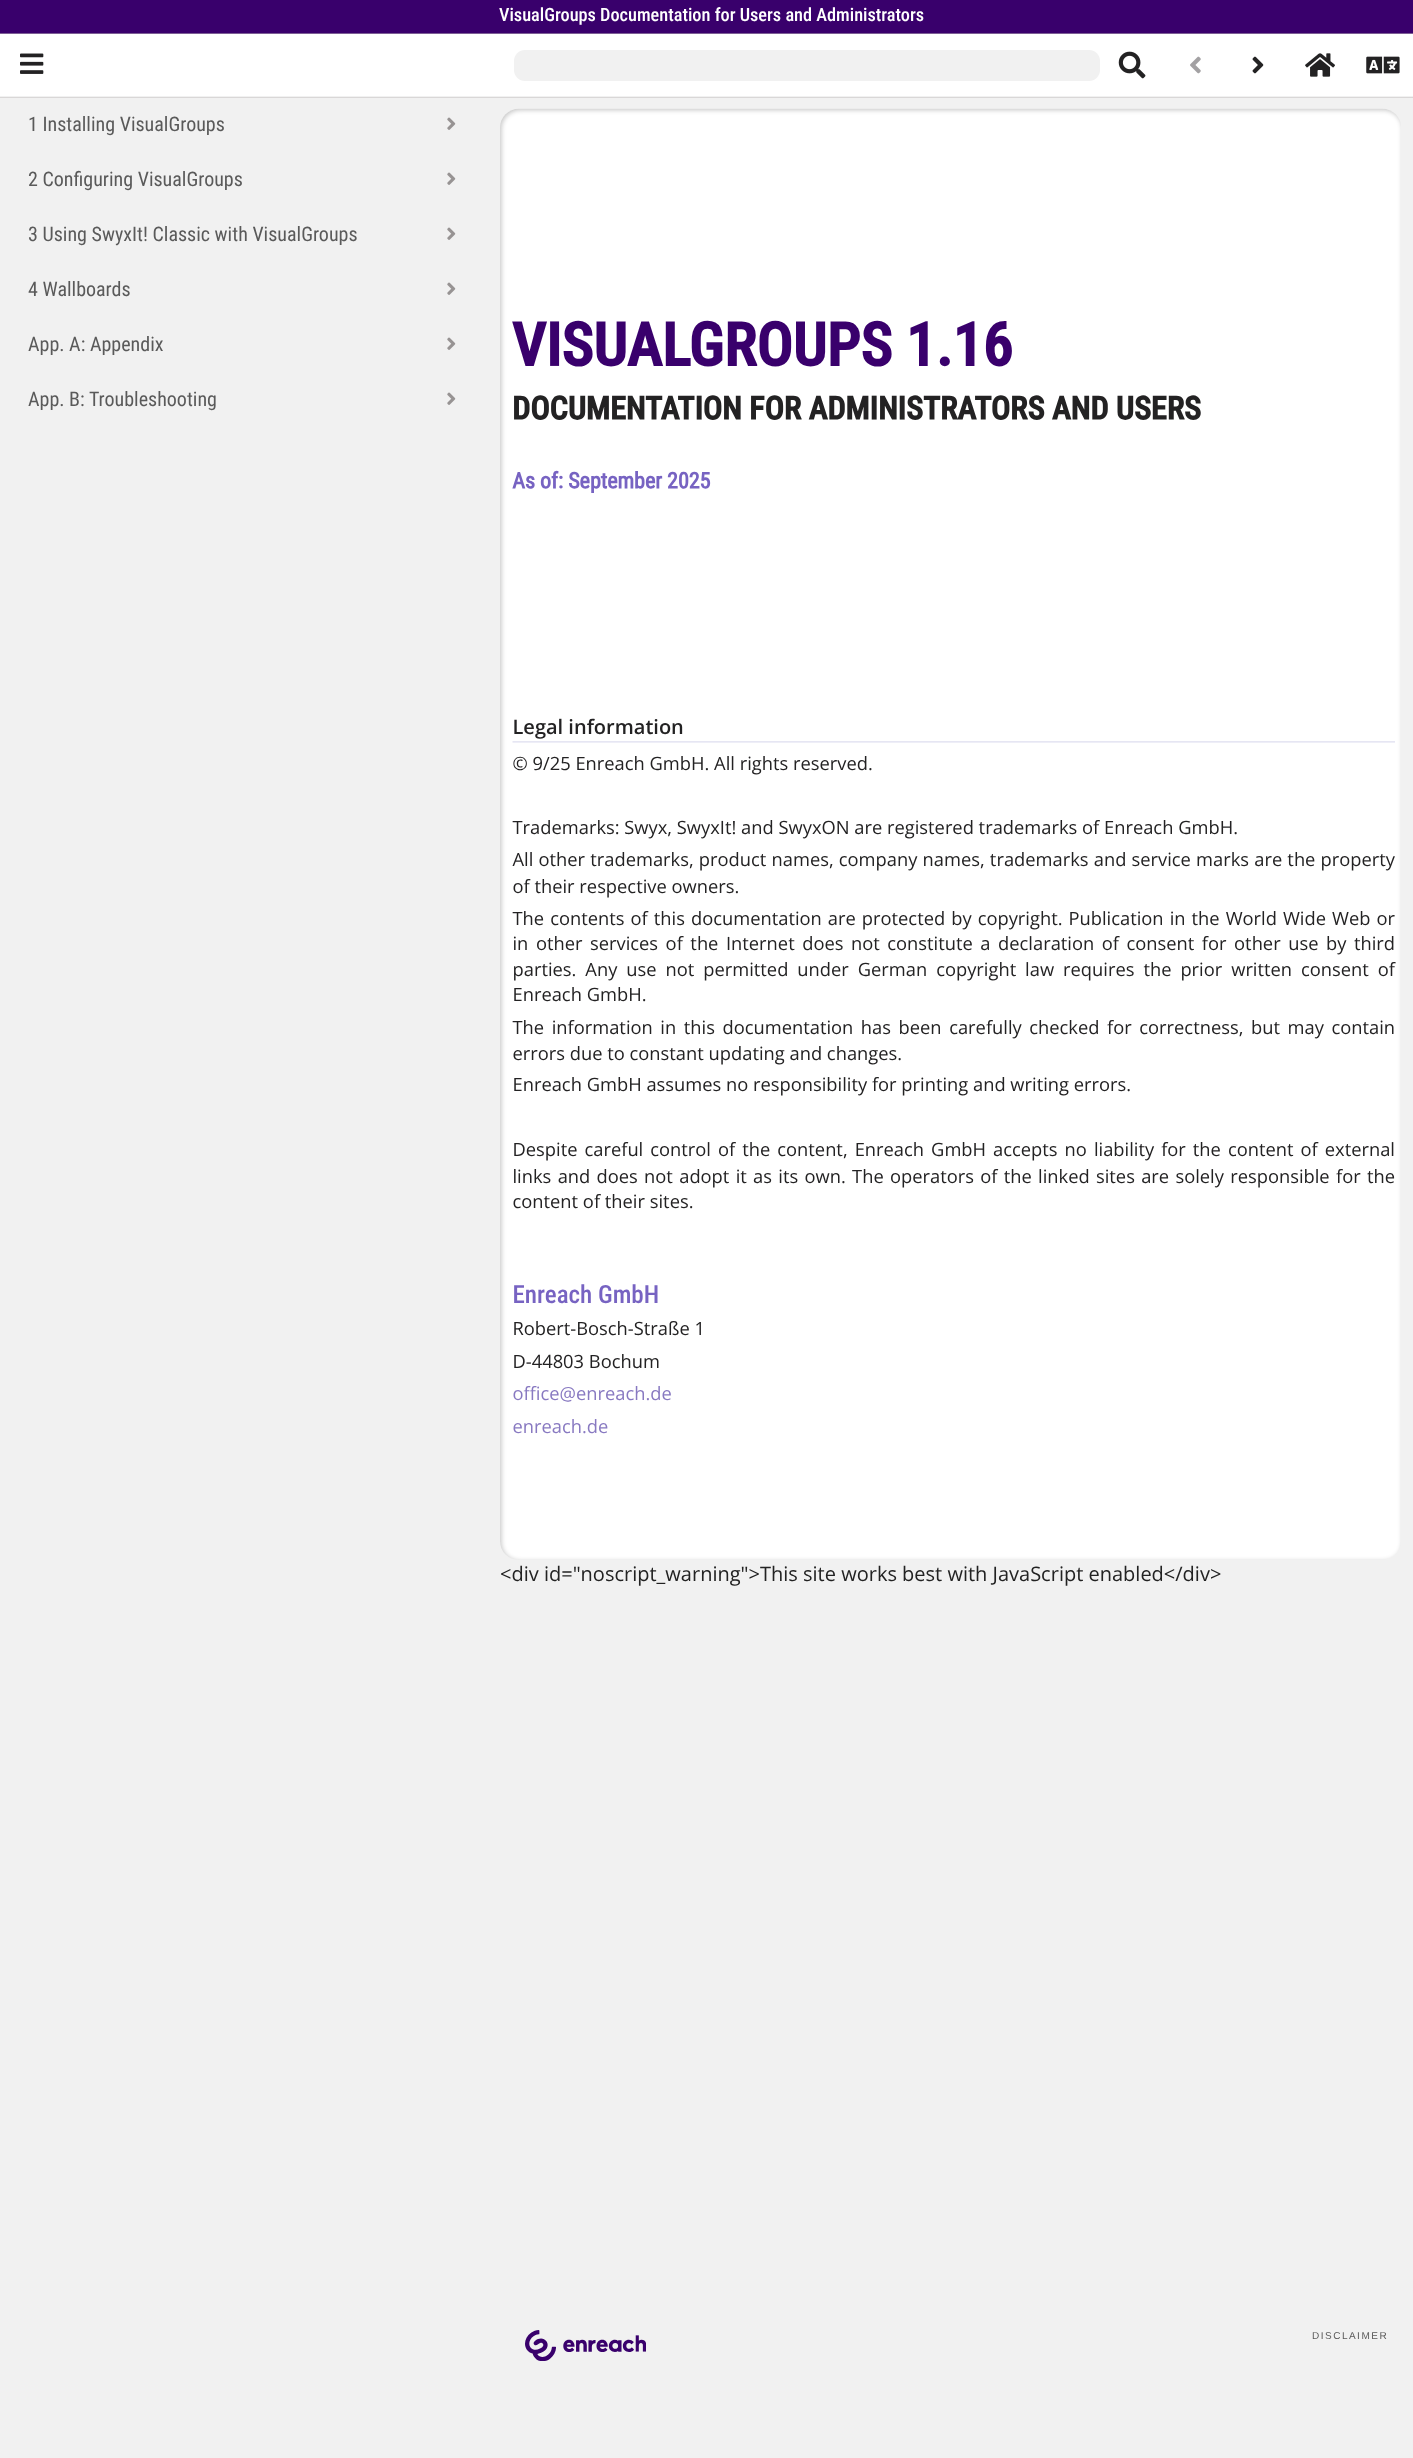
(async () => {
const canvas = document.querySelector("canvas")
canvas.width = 1413
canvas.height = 2458
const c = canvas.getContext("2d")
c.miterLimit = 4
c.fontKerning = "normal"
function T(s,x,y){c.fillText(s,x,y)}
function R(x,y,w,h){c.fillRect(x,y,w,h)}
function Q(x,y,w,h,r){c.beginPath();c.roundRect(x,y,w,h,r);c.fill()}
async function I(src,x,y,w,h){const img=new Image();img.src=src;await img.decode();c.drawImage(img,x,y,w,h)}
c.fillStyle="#f1f1f1"
R(0,0,1413,2458)
c.fillStyle="#39006c"
R(0,0,1413,34)
c.font="500 18.3px Roboto Condensed"
c.fillStyle="#fff"
T("VisualGroups Documentation for Users and Administrators",499,21)
c.strokeStyle="#c2bebe80"
c.strokeRect(-.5,33.5,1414,64)
R(0,34,1413,62)
await I("1.png",20,53,24,21)
c.fillStyle="#f1f1f1"
Q(514,50,586,31,11)
await I("2.png",1118,51,28,28)
await I("3.png",1190,56,11,18)
await I("4.png",1252,56,12,18)
await I("5.png",1305,53,30,24)
await I("6.png",1366,56,34,18)
c.font="20px Roboto Condensed"
c.fillStyle="#5a5a5a"
T("1 Installing VisualGroups",28,131)
await I("7.png",447,117,9,13)
T("2 Configuring VisualGroups",28,186)
await I("7.png",447,172,9,13)
T("3 Using SwyxIt! Classic with VisualGroups",28,241)
await I("7.png",447,227,9,13)
T("4 Wallboards",28,296)
await I("7.png",447,282,9,13)
T("App. A: Appendix",28,351)
await I("7.png",447,337,9,13)
T("App. B: Troubleshooting",28,406)
await I("7.png",447,392,9,13)
await I("8.png",500,108,901,1478)
await I("9.png",525,2330,121,31)
c.letterSpacing="1.5px"
c.font="10px Liberation Sans"
T("DISCLAIMER",1312,2339)
})()
